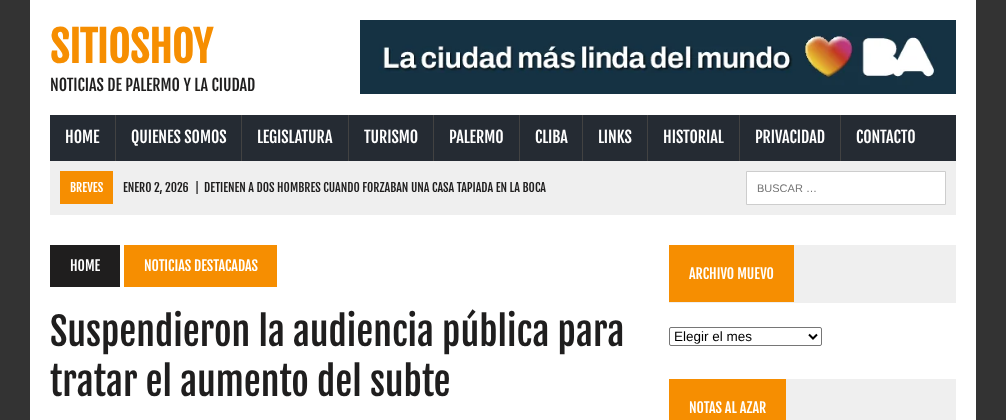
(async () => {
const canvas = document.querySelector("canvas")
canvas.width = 1006
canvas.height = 420
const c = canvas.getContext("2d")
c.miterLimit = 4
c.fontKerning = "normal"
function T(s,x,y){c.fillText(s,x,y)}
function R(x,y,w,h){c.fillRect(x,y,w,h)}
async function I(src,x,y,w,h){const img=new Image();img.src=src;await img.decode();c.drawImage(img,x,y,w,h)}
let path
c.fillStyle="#333"
R(0,0,1006,420)
c.fillStyle="#fff"
R(30,0,946,420)
c.font="bold 42px Fjalla One"
c.fillStyle="#f68e01"
T("SITIOSHOY",50,63)
c.font="16px Fjalla One"
c.fillStyle="#1f1e1e"
T("NOTICIAS DE PALERMO Y LA CIUDAD",50,91)
await I("1.png",360,20,596,74)
c.fillStyle="#252b33"
R(50,115,906,46)
c.fillStyle="#fff"
T("HOME",65,143)
c.fillStyle="#424242"
R(115,115,1,46)
c.fillStyle="#fff"
T("QUIENES SOMOS",131,143)
c.fillStyle="#424242"
R(241,115,1,46)
c.fillStyle="#fff"
T("LEGISLATURA",257,143)
c.fillStyle="#424242"
R(348,115,1,46)
c.fillStyle="#fff"
T("TURISMO",364,143)
c.fillStyle="#424242"
R(433,115,1,46)
c.fillStyle="#fff"
T("PALERMO",449,143)
c.fillStyle="#424242"
R(519,115,1,46)
c.fillStyle="#fff"
T("CLIBA",535,143)
c.fillStyle="#424242"
R(582,115,1,46)
c.fillStyle="#fff"
T("LINKS",598,143)
c.fillStyle="#424242"
R(647,115,1,46)
c.fillStyle="#fff"
T("HISTORIAL",663,143)
c.fillStyle="#424242"
R(739,115,1,46)
c.fillStyle="#fff"
T("PRIVACIDAD",755,143)
c.fillStyle="#424242"
R(840,115,1,46)
c.fillStyle="#fff"
T("CONTACTO",856,143)
c.fillStyle="#efefef"
R(50,161,906,54)
c.fillStyle="#f68e01"
R(60,171,53,33)
c.font="12px Fjalla One"
c.fillStyle="#fff"
T("BREVES",70,192)
c.fillStyle="#1f1e1e"
T("ENERO 2, 2026",123,192)
T("|",195,192)
T("DETIENEN A DOS HOMBRES CUANDO FORZABAN UNA CASA TAPIADA EN LA BOCA",204,192)
c.fillStyle="#fff"
c.beginPath()
c.rect(746.5,171.5,199,33)
c.fill()
c.strokeStyle="#cdcdcd"
c.stroke()
c.font="11px Liberation Sans"
c.fillStyle="#757575"
T("BUSCAR …",757,192)
c.fillStyle="#1f1e1e"
R(50,245,70,42)
c.font="14px Fjalla One"
c.fillStyle="#fff"
T("HOME",70,271)
c.fillStyle="#f68e01"
R(124,245,153,42)
c.fillStyle="#fff"
T("NOTICIAS DESTACADAS",144,271)
c.font="38px Fjalla One"
c.fillStyle="#1f1e1e"
T("Suspendieron la audiencia pública para",50,346)
T("tratar el aumento del subte",50,396)
c.fillStyle="#efefef"
R(669,245,287,58)
c.fillStyle="#f68e01"
R(669,245,125,57)
c.font="14px Fjalla One"
c.fillStyle="#fff"
T("ARCHIVO MUEVO",689,279)
c.beginPath()
c.roundRect(669.5,327.5,152,18,1.5)
c.strokeStyle="#767676"
c.stroke()
path = new Path2D("M809 334.5l4 4l4-4")
c.strokeStyle="#000"
c.lineWidth=2
c.stroke(path)
c.font="13.5px Liberation Sans"
c.fillStyle="#000"
T("Elegir el mes",674,341)
c.fillStyle="#efefef"
R(786,379,170,41)
c.fillStyle="#f68e01"
R(669,379,117,41)
c.font="14px Fjalla One"
c.fillStyle="#fff"
T("NOTAS AL AZAR",689,413)
})()
